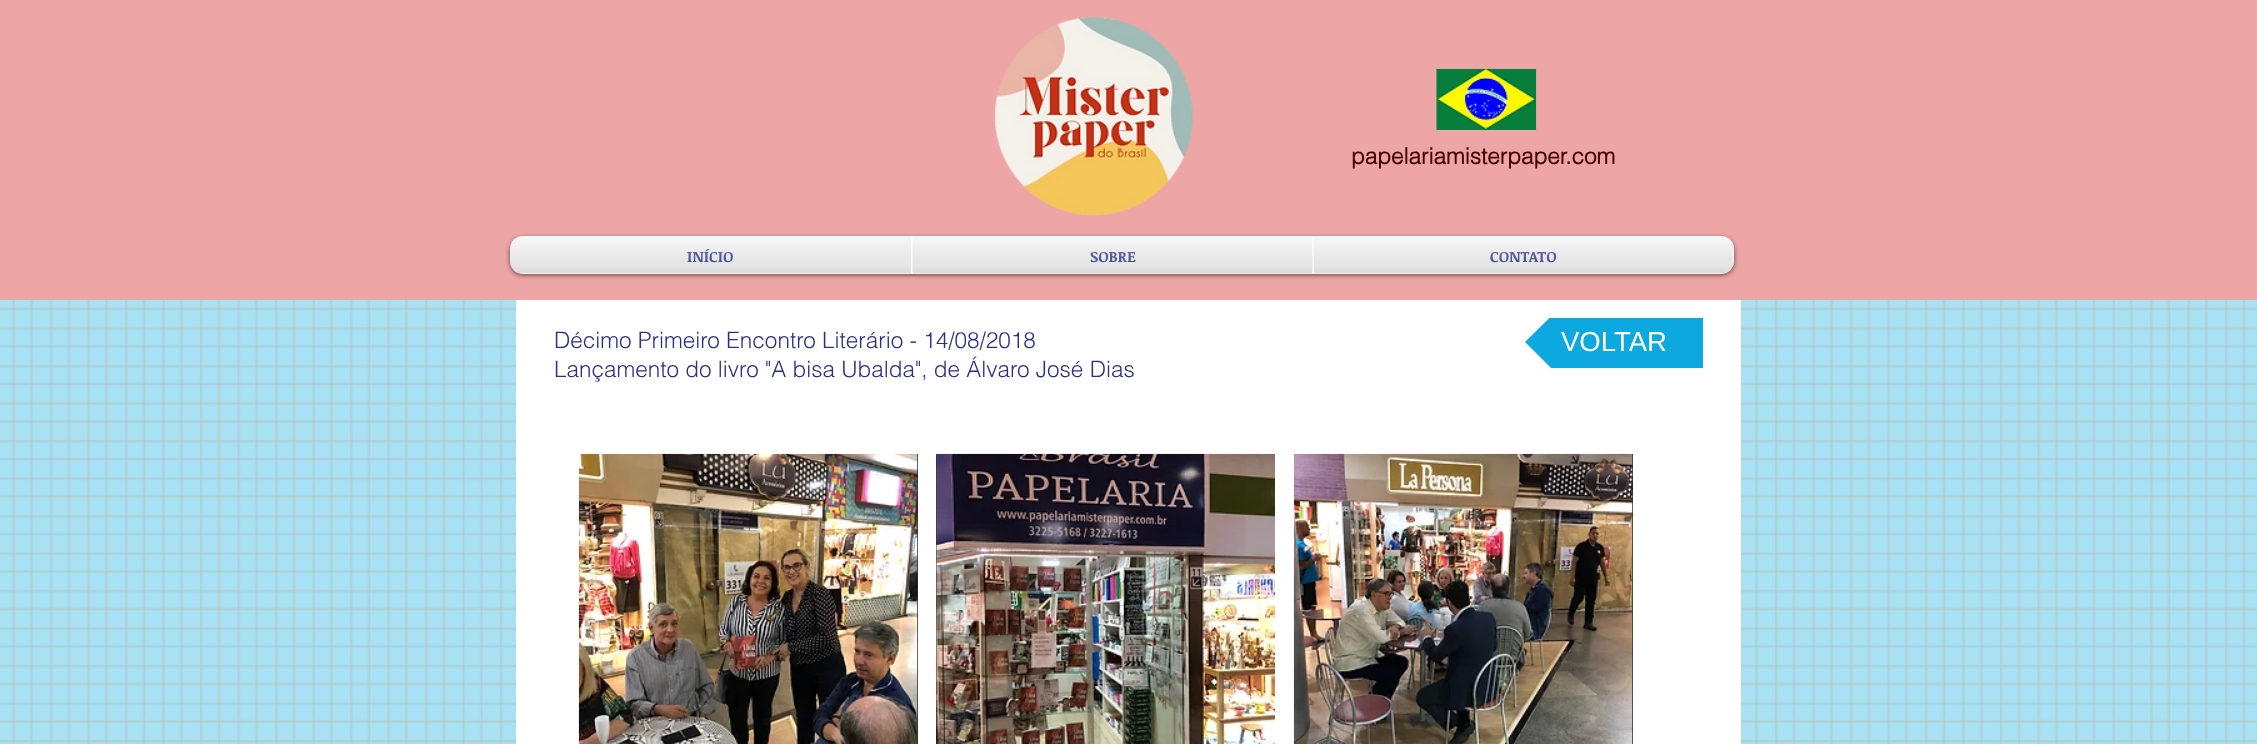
(async () => {
const canvas = document.querySelector("canvas")
canvas.width = 2257
canvas.height = 744
const c = canvas.getContext("2d")
c.miterLimit = 4
c.fontKerning = "normal"
function T(s,x,y){c.fillText(s,x,y)}
function R(x,y,w,h){c.fillRect(x,y,w,h)}
async function I(src,x,y,w,h){const img=new Image();img.src=src;await img.decode();c.drawImage(img,x,y,w,h)}
let path
c.fillStyle="#a8e0f4"
R(0,0,2257,744)
c.fillStyle="#eea5a6"
R(0,0,2257,300)
await I("1.png",994,16,200,200)
await I("2.png",1436,68,101,62)
c.font="bold 22.5px helvetica"
c.fillStyle="#440506"
T("papelariamisterpaper.com",1351,164)
c.fillStyle="#00000099"
c.filter="blur(2.5px)"
c.beginPath()
c.roundRect(510,238,1224,37,13)
c.fill()
c.filter="none"
await I("3.png",510,236,1224,32)
await I("4.png",510,243,1224,31)
c.fillStyle="#fff"
c.beginPath()
c.roundRect(510,236,401,38,[13,0,0,13])
c.fill()
c.font="bold 15px Noticia Text"
c.fillStyle="#2a2f8c"
T("INÍCIO",687,262)
await I("5.png",688,249,46,14)
await I("6.png",510,237,401,37)
c.fillStyle="#fff"
R(911,236,402,38)
c.fillStyle="#2a2f8c"
T("SOBRE",1090,262)
await I("7.png",1090,252,45,11)
await I("8.png",912,237,401,37)
c.fillStyle="#fff"
c.beginPath()
c.roundRect(1313,236,421,38,[0,13,13,0])
c.fill()
c.fillStyle="#2a2f8c"
T("CONTATO",1490,262)
await I("9.png",1491,252,66,11)
await I("10.png",1314,237,420,37)
await I("14.png",0,300,2257,444)
c.fillStyle="#fff"
R(516,300,1225,444)
c.font="300 22.5px helvetica"
c.fillStyle="#2a2f8c"
T("Décimo Primeiro Encontro Literário - 14/08/2018",554,348)
T("Lançamento do livro \"A bisa Ubalda\", de Álvaro José Dias",554,377)
c.save()
c.beginPath()
c.rect(1525,318,178,50)
c.clip()
c.fillStyle="#0da8e0"
path = new Path2D("M1588 342h-63l63-62zm-63 0h63v63z")
c.fill(path)
c.restore()
c.fillStyle="#0da8e0"
R(1588,318,115,50)
c.font="27.5px Liberation Sans"
c.fillStyle="#fff"
T("VOLTAR",1561,351)
c.fillStyle="#2f2e2e"
R(917,454,1,290)
await I("11.png",578,453,340,291)
R(936,454,1,290)
await I("12.png",936,453,339,291)
R(1632,454,1,290)
await I("13.png",1293,453,340,291)
})()
